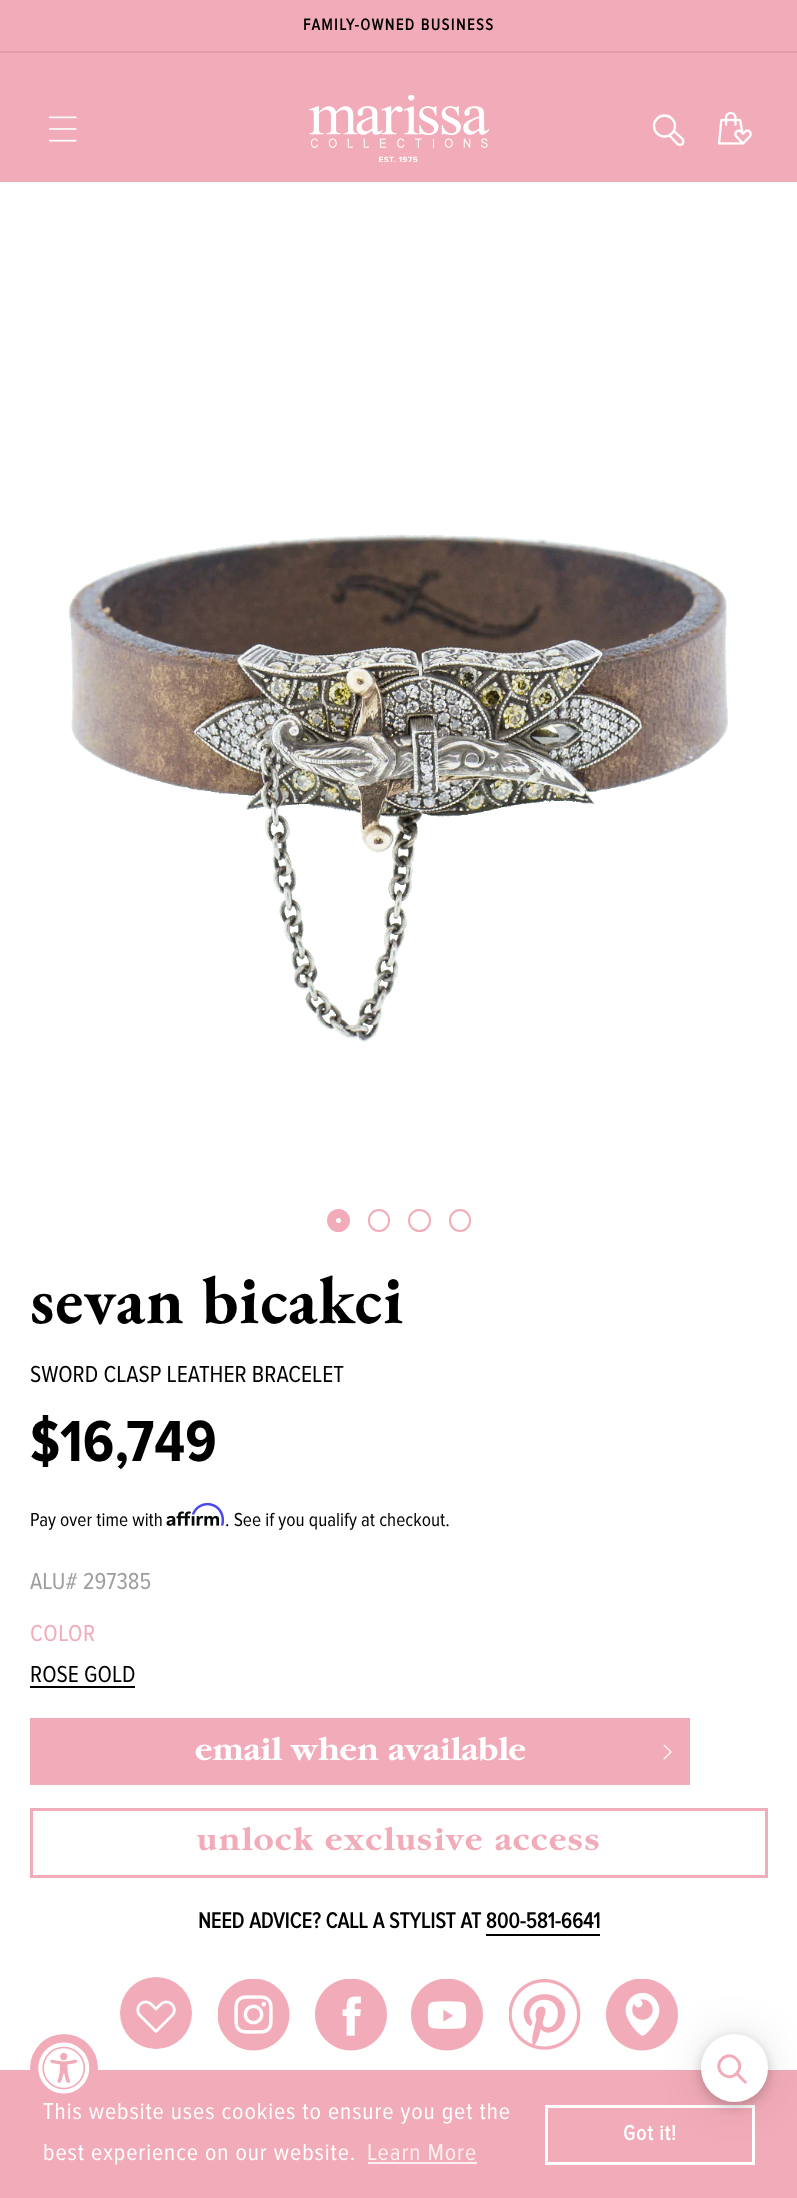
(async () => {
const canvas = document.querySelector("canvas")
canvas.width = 797
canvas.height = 2198
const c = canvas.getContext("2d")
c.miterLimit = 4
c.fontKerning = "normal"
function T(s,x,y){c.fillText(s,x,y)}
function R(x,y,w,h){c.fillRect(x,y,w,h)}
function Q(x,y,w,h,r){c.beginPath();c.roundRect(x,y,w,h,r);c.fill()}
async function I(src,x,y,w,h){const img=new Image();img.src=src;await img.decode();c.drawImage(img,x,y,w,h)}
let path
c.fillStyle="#fff"
R(0,0,797,2198)
c.fillStyle="#f2acb9"
R(0,0,797,182)
c.fillStyle="#df9eaa"
R(0,51,797,2)
c.letterSpacing="1.5px"
c.font="bold 16.5px 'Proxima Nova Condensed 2'"
c.fillStyle="#000"
T("FAMILY-OWNED BUSINESS",303,30)
await I("1.png",48,116,29,26)
await I("2.png",309,95,180,67)
c.beginPath()
c.arc(664.5,126,10.5,0,7)
c.strokeStyle="#fff"
c.lineWidth=2.3
c.stroke()
path = new Path2D("M669.5 135.5l8 8.5c1.5 1 3.5 1 5 0c1-1.5 1-3.5 0-5l-8.5-8")
c.lineCap="round"
c.lineJoin="round"
c.stroke(path)
await I("3.png",717,111,35,34)
await I("4.png",69,534,659,508)
c.beginPath()
c.arc(338.5,1220.5,7,0,7)
c.strokeStyle="#f2acb9"
c.lineWidth=9
c.stroke()
c.beginPath()
c.roundRect(369,1210,20,21,10)
c.lineWidth=2
c.lineJoin="miter"
c.stroke()
c.beginPath()
c.arc(419.5,1220.5,10.5,0,7)
c.stroke()
c.beginPath()
c.roundRect(450,1210,20,21,10)
c.stroke()
c.letterSpacing="0.9px"
c.font="bold 67.5px EB Garamond"
T("sevan bicakci",30,1323)
c.letterSpacing="0px"
c.font="24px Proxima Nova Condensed"
T("SWORD CLASP LEATHER BRACELET",30,1382)
c.font="bold 60px Proxima Nova Condensed"
T("$16,749",30,1461)
c.font="19.5px Proxima Nova Condensed"
T("Pay over time with",30,1526)
await I("6.png",166,1511,54,15)
await I("5.png",191,1502,34,24)
T(". See if you qualify at checkout.",225,1526)
c.font="24px Proxima Nova Condensed"
c.fillStyle="#9e9e9e"
T("ALU# 297385",30,1589)
c.letterSpacing="0.5px"
c.fillStyle="#f2acb9"
T("COLOR",30,1641)
c.fillStyle="#000"
R(30,1686,105,2)
c.letterSpacing="0px"
T("ROSE GOLD",30,1682)
c.fillStyle="#f2acb9"
R(30,1718,660,67)
c.font="bold 33px Garamond"
c.fillStyle="#fff"
T("email when available",195,1760)
await I("7.png",663,1745,9,15)
c.lineWidth=3
c.strokeRect(31.5,1809.5,735,67)
c.letterSpacing="1.5px"
c.fillStyle="#f2acb9"
T("unlock exclusive access",197,1850)
c.letterSpacing="0px"
c.font="bold 22.5px 'Proxima Nova Condensed 2'"
c.fillStyle="#000"
T("NEED ADVICE? CALL A STYLIST AT 800-581-6641",198,1928)
R(486,1934,114,2)
c.fillStyle="#f2acb9"
c.beginPath()
c.arc(156,2013,36,0,7)
c.fill()
await I("8.png",136,2000,40,33)
await I("9.png",218,1979,72,72)
await I("10.png",315,1979,72,72)
await I("11.png",411,1979,72,72)
await I("12.png",509,1979,72,71)
await I("13.png",606,1979,72,72)
R(0,2070,797,128)
c.beginPath()
c.arc(64,2068,34,0,7)
c.fill()
await I("14.png",38,2042,52,52)
c.strokeStyle="#fff"
c.strokeRect(546.5,2106.5,207,57)
c.fillStyle="#0000000d"
c.filter="blur(6px)"
c.beginPath()
c.roundRect(701,2040,67,68,33.5)
c.fill()
c.filter="none"
c.fillStyle="#00000026"
c.filter="blur(6px)"
c.beginPath()
c.roundRect(701,2037,67,68,33.5)
c.fill()
c.filter="none"
c.fillStyle="#0000001a"
c.filter="blur(22.5px)"
c.beginPath()
c.roundRect(701,2034,67,68,33.5)
c.fill()
c.filter="none"
c.fillStyle="#fff"
Q(701,2034,67,68,33.5)
path = new Path2D("M722 2059c9.5-10 24.5 5 14.5 14.5c-9.5 10-24.5-5-14.5-14.5z")
c.strokeStyle="#f2acb9"
c.lineCap="butt"
c.stroke(path)
c.fillStyle="#f2acb9"
path = new Path2D("M735.5 2074.5l2.5-2l8.5 9c1 1.5-1 3-2.5 1.5z")
c.fill(path)
c.letterSpacing="0.9px"
c.font="24px Proxima Nova Condensed"
c.fillStyle="#fff"
T("This website uses cookies to ensure you get the",43,2119)
T("best experience on our website.",43,2160)
c.fillStyle="#fceef1"
T("Learn More",367,2160)
R(368,2162,109,2)
c.font="bold 21.5px 'Proxima Nova Condensed 2'"
c.fillStyle="#fff"
T("Got it!",623,2140)
})()
